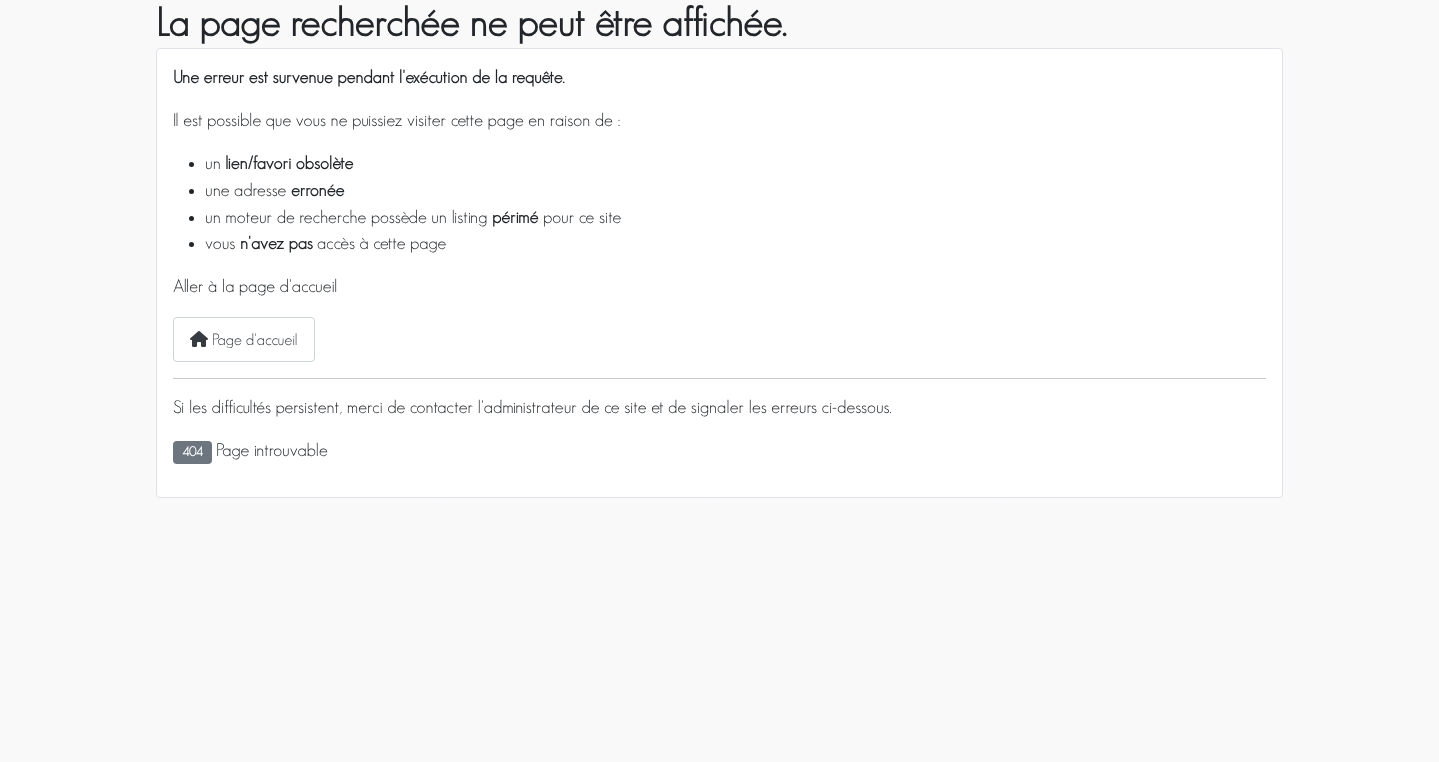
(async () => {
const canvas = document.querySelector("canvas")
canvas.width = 1439
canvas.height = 762
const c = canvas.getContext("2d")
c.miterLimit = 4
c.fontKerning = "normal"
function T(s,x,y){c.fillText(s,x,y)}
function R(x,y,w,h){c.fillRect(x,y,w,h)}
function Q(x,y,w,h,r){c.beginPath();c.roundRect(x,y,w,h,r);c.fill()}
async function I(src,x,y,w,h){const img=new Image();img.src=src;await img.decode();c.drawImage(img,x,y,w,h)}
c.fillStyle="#f9f9f9"
R(0,0,1439,762)
c.font="bold 40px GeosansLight"
c.fillStyle="#22262a"
T("La page recherchée ne peut être affichée.",156,36)
c.fillStyle="#fff"
c.beginPath()
c.roundRect(156.5,48.5,1126,449,3.5)
c.fill()
c.strokeStyle="#dfe3e7"
c.stroke()
c.font="bold 17.9px GeosansLight"
c.fillStyle="#22262a"
T("Une erreur est survenue pendant l'exécution de la requête.",173,83)
c.font="300 17.9px GeosansLight"
T("Il est possible que vous ne puissiez visiter cette page en raison de :",173,126)
c.beginPath()
c.arc(191.5,164.5,2.5,0,7)
c.fill()
T("un",205,169)
c.font="bold 17.9px GeosansLight"
T("lien/favori obsolète",225,169)
c.beginPath()
c.arc(191.5,191.5,2.5,0,7)
c.fill()
c.font="300 17.9px GeosansLight"
T("une adresse",205,196)
c.font="bold 17.9px GeosansLight"
T("erronée",291,196)
c.beginPath()
c.arc(191.5,218.5,2.5,0,7)
c.fill()
c.font="300 17.9px GeosansLight"
T("un moteur de recherche possède un listing",205,223)
c.font="bold 17.9px GeosansLight"
T("périmé",492,223)
c.font="300 17.9px GeosansLight"
T("pour ce site",543,223)
c.beginPath()
c.arc(191.5,244.5,2.5,0,7)
c.fill()
T("vous",205,249)
c.font="bold 17.9px GeosansLight"
T("n'avez pas",240,249)
c.font="300 17.9px GeosansLight"
T("accès à cette page",317,249)
T("Aller à la page d'accueil",173,292)
c.beginPath()
c.roundRect(173.5,317.5,141,44,3.5)
c.strokeStyle="#ced4da"
c.stroke()
await I("1.png",190,331,18,16)
c.font="300 16px GeosansLight"
c.fillStyle="#353b41"
T("Page d'accueil",212,345)
c.fillStyle="#c8c9ca"
R(173,378,1093,1)
c.font="300 17.9px GeosansLight"
c.fillStyle="#22262a"
T("Si les difficultés persistent, merci de contacter l'administrateur de ce site et de signaler les erreurs ci-dessous.",173,413)
c.fillStyle="#6d757e"
Q(173,441,39,23,4)
c.font="bold 13px GeosansLight"
c.fillStyle="#fff"
T("404",182,456)
c.font="300 17.9px GeosansLight"
c.fillStyle="#22262a"
T("Page introuvable",216,456)
})()
